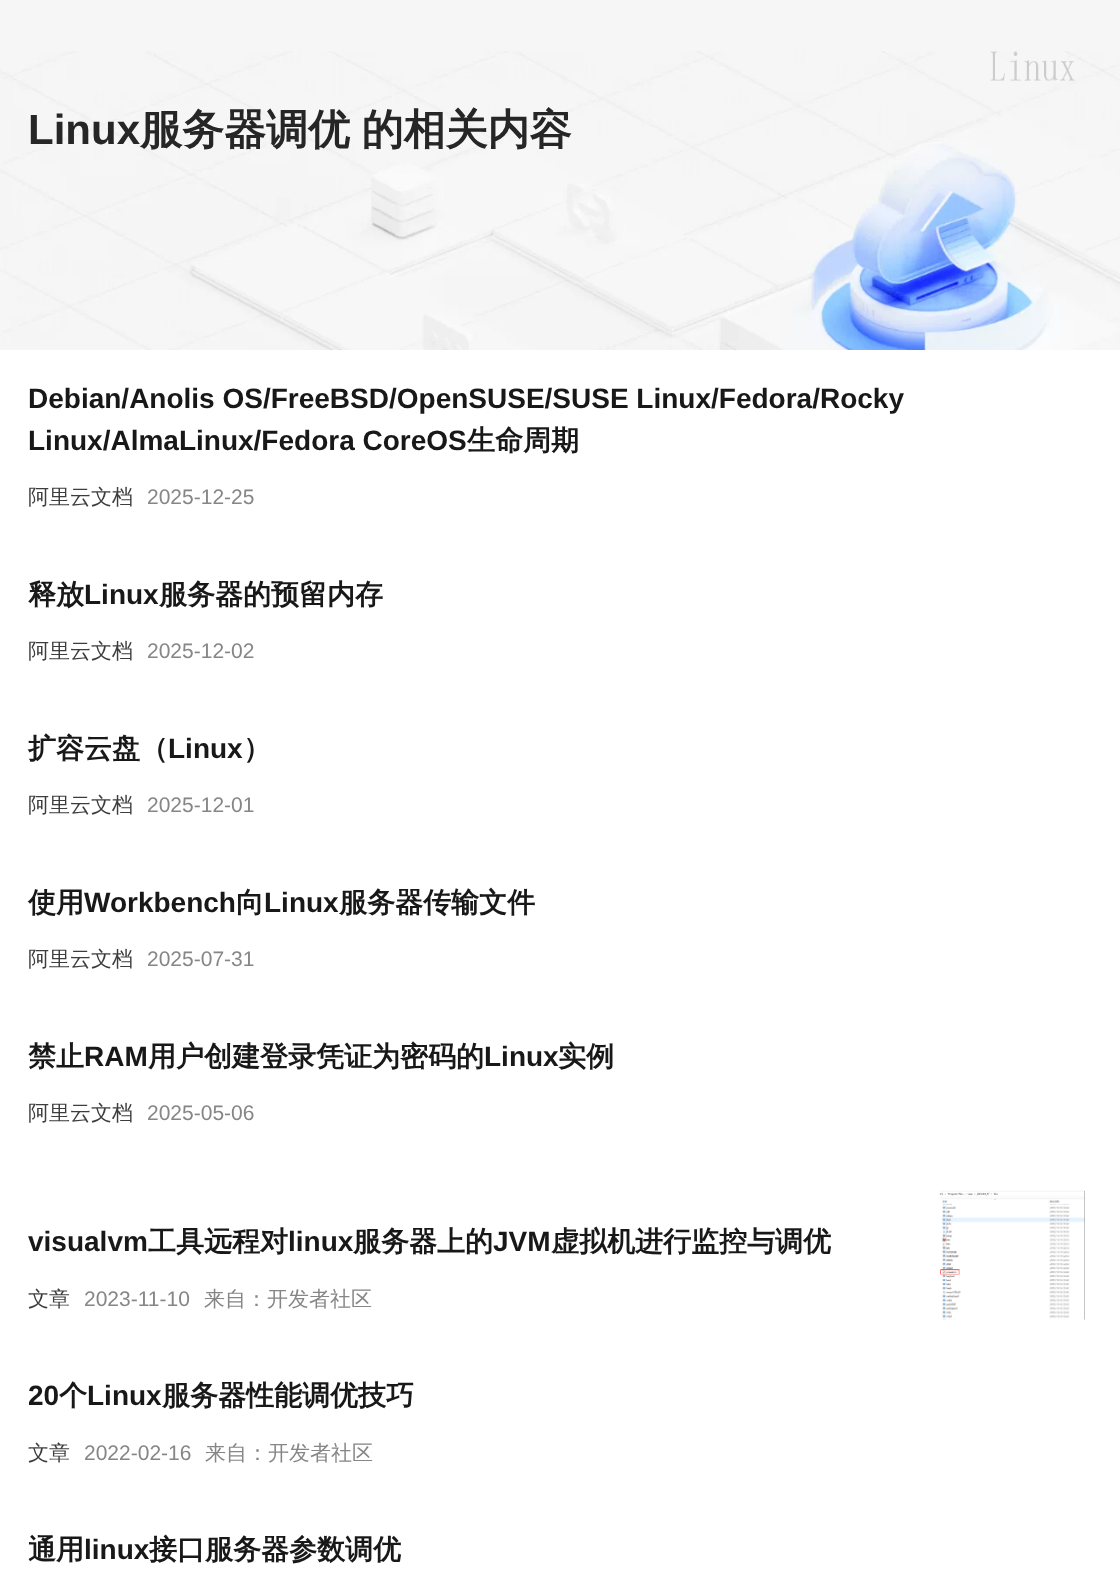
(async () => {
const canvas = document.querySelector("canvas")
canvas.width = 1120
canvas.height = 1582
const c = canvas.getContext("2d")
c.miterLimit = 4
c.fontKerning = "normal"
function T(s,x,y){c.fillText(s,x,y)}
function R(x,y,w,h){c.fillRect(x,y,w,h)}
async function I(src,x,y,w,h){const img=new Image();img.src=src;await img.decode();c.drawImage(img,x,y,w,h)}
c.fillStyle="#fff"
R(0,0,1120,1582)
c.fillStyle="#f6f6f6"
R(0,0,1120,51)
await I("1.png",0,51,1120,299)
await I("2.png",990,51,85,30)
c.font="bold 42px Liberation Sans"
c.fillStyle="#262626"
T("Linux",28,144)
c.wordSpacing="-1px"
c.font="bold 42px WenQuanYi Zen Hei"
T("服务器调优 的相关内容",140,144)
c.wordSpacing="0px"
c.font="bold 28px Liberation Sans"
c.fillStyle="#181818"
T("Debian/Anolis OS/FreeBSD/OpenSUSE/SUSE Linux/Fedora/Rocky",28,408)
T("Linux/AlmaLinux/Fedora CoreOS",28,450)
c.font="bold 28px WenQuanYi Zen Hei"
T("生命周期",467,450)
c.font="500 21px WenQuanYi Zen Hei"
c.fillStyle="#3d3d3d"
T("阿里云文档",28,504)
c.font="21px Liberation Sans"
c.fillStyle="#868686"
T("2025-12-25",147,504)
c.font="bold 28px WenQuanYi Zen Hei"
c.fillStyle="#181818"
T("释放",28,604)
c.font="bold 28px Liberation Sans"
T("Linux",84,604)
c.font="bold 28px WenQuanYi Zen Hei"
T("服务器的预留内存",159,604)
c.font="500 21px WenQuanYi Zen Hei"
c.fillStyle="#3d3d3d"
T("阿里云文档",28,658)
c.font="21px Liberation Sans"
c.fillStyle="#868686"
T("2025-12-02",147,658)
c.font="bold 28px WenQuanYi Zen Hei"
c.fillStyle="#181818"
T("扩容云盘（",28,758)
c.font="bold 28px Liberation Sans"
T("Linux",168,758)
c.font="bold 28px WenQuanYi Zen Hei"
T("）",243,758)
c.font="500 21px WenQuanYi Zen Hei"
c.fillStyle="#3d3d3d"
T("阿里云文档",28,812)
c.font="21px Liberation Sans"
c.fillStyle="#868686"
T("2025-12-01",147,812)
c.font="bold 28px WenQuanYi Zen Hei"
c.fillStyle="#181818"
T("使用",28,912)
c.font="bold 28px Liberation Sans"
T("Workbench",84,912)
c.font="bold 28px WenQuanYi Zen Hei"
T("向",236,912)
c.font="bold 28px Liberation Sans"
T("Linux",264,912)
c.font="bold 28px WenQuanYi Zen Hei"
T("服务器传输文件",339,912)
c.font="500 21px WenQuanYi Zen Hei"
c.fillStyle="#3d3d3d"
T("阿里云文档",28,966)
c.font="21px Liberation Sans"
c.fillStyle="#868686"
T("2025-07-31",147,966)
c.font="bold 28px WenQuanYi Zen Hei"
c.fillStyle="#181818"
T("禁止",28,1066)
c.font="bold 28px Liberation Sans"
T("RAM",84,1066)
c.font="bold 28px WenQuanYi Zen Hei"
T("用户创建登录凭证为密码的",148,1066)
c.font="bold 28px Liberation Sans"
T("Linux",484,1066)
c.font="bold 28px WenQuanYi Zen Hei"
T("实例",558,1066)
c.font="500 21px WenQuanYi Zen Hei"
c.fillStyle="#3d3d3d"
T("阿里云文档",28,1120)
c.font="21px Liberation Sans"
c.fillStyle="#868686"
T("2025-05-06",147,1120)
c.font="bold 28px Liberation Sans"
c.fillStyle="#181818"
T("visualvm",28,1251)
c.font="bold 28px WenQuanYi Zen Hei"
T("工具远程对",148,1251)
c.font="bold 28px Liberation Sans"
T("linux",288,1251)
c.font="bold 28px WenQuanYi Zen Hei"
T("服务器上的",353,1251)
c.font="bold 28px Liberation Sans"
T("JVM",493,1251)
c.font="bold 28px WenQuanYi Zen Hei"
T("虚拟机进行监控与调优",551,1251)
c.font="500 21px WenQuanYi Zen Hei"
c.fillStyle="#3d3d3d"
T("文章",28,1306)
c.font="21px Liberation Sans"
c.fillStyle="#868686"
T("2023-11-10",84,1306)
c.font="500 21px WenQuanYi Zen Hei"
T("来自：开发者社区",204,1306)
await I("3.png",939,1190,146,130)
c.font="bold 28px Liberation Sans"
c.fillStyle="#181818"
T("20",28,1405)
c.font="bold 28px WenQuanYi Zen Hei"
T("个",59,1405)
c.font="bold 28px Liberation Sans"
T("Linux",87,1405)
c.font="bold 28px WenQuanYi Zen Hei"
T("服务器性能调优技巧",162,1405)
c.font="500 21px WenQuanYi Zen Hei"
c.fillStyle="#3d3d3d"
T("文章",28,1460)
c.font="21px Liberation Sans"
c.fillStyle="#868686"
T("2022-02-16",84,1460)
c.font="500 21px WenQuanYi Zen Hei"
T("来自：开发者社区",205,1460)
c.font="bold 28px WenQuanYi Zen Hei"
c.fillStyle="#181818"
T("通用",28,1559)
c.font="bold 28px Liberation Sans"
T("linux",84,1559)
c.font="bold 28px WenQuanYi Zen Hei"
T("接口服务器参数调优",149,1559)
})()
